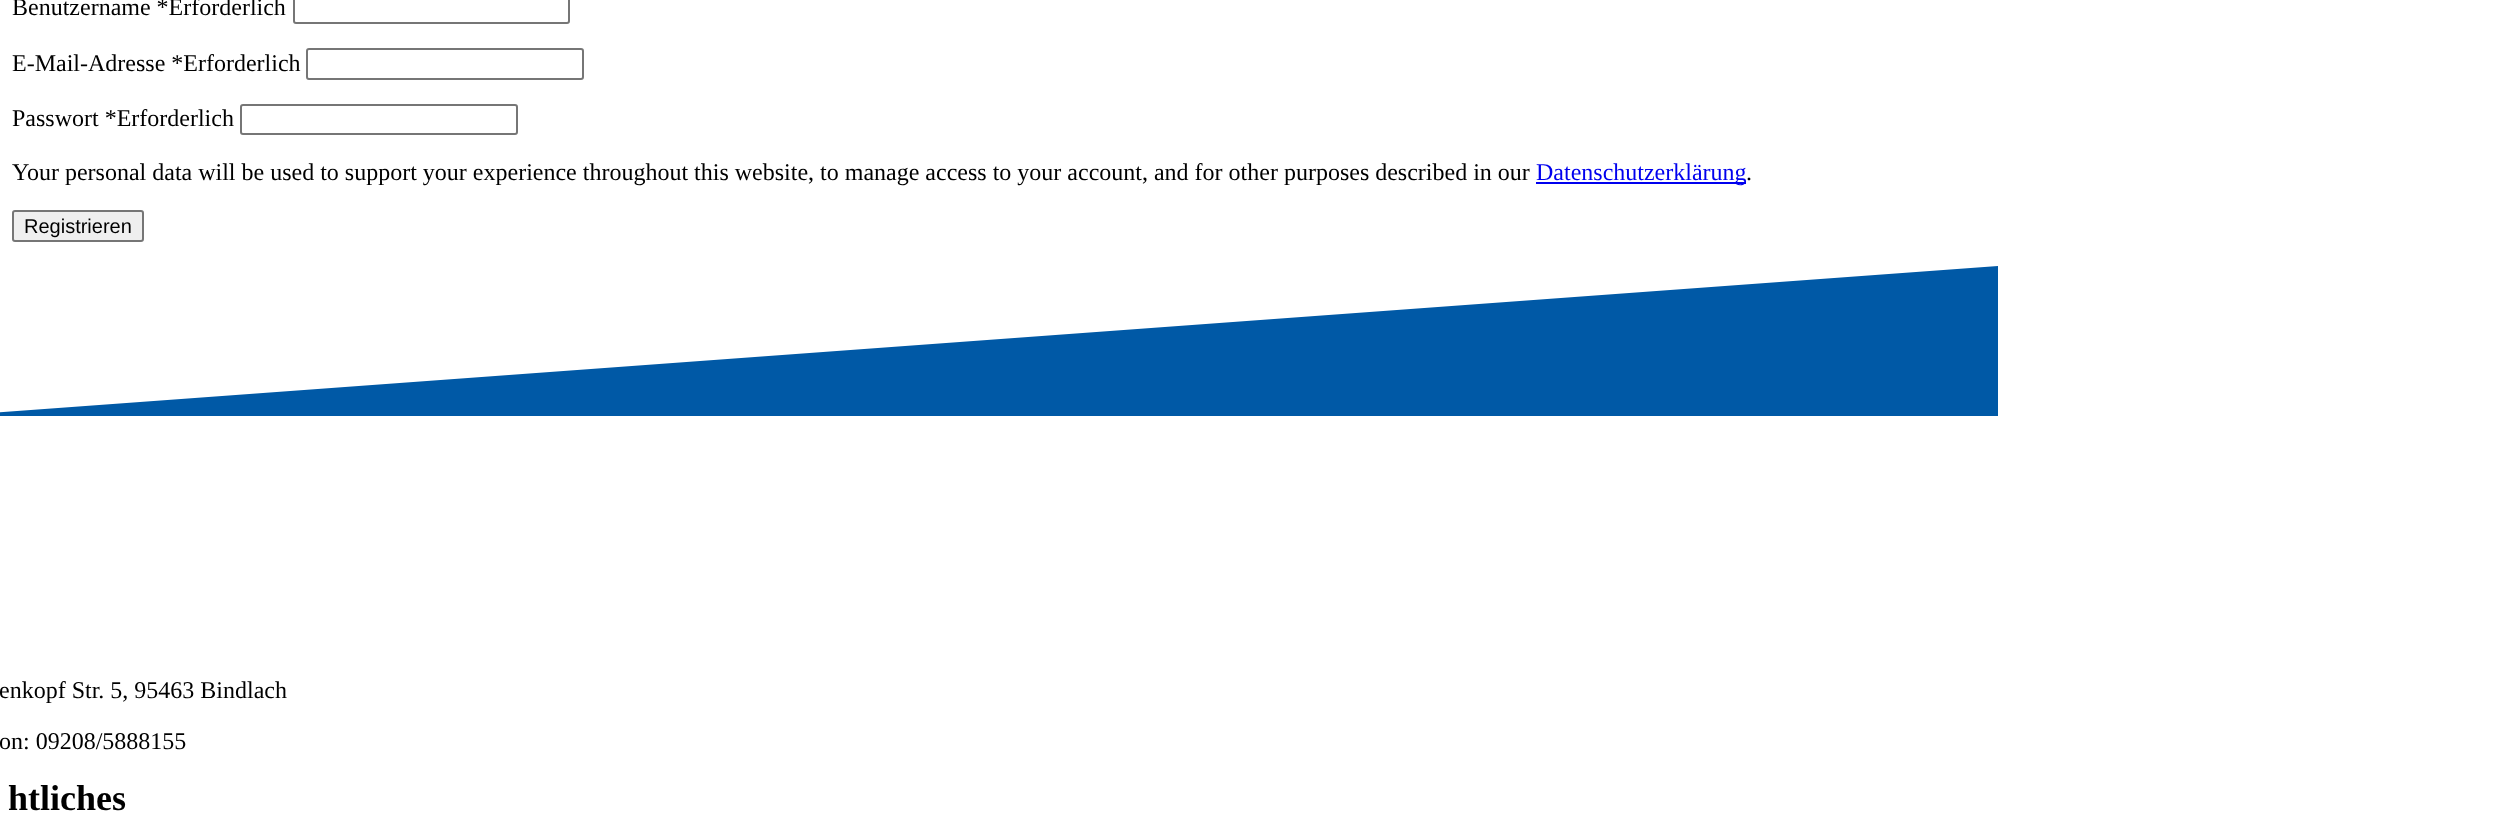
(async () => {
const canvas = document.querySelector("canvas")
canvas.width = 2506
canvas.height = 839
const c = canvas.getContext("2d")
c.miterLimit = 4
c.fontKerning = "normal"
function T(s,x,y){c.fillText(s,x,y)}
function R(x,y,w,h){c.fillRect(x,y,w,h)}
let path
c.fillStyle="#fff"
R(0,0,2506,839)
c.font="24px Liberation Serif"
c.fillStyle="#000"
T("Benutzername *Erforderlich",12,15)
c.beginPath()
c.roundRect(294,-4,275,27,2)
c.strokeStyle="#767676"
c.lineWidth=2
c.stroke()
T("E-Mail-Adresse *Erforderlich",12,71)
c.beginPath()
c.roundRect(307,49,276,30,2)
c.stroke()
T("Passwort *Erforderlich",12,126)
c.beginPath()
c.roundRect(241,105,276,29,2)
c.stroke()
T("Your personal data will be used to support your experience throughout this website, to manage access to your account, and for other purposes described in our",12,180)
c.fillStyle="#00e"
R(1536,182,210,2)
T("Datenschutzerklärung",1536,180)
c.fillStyle="#000"
T(".",1746,180)
c.fillStyle="#efefef"
c.beginPath()
c.roundRect(13,211,130,30,2)
c.fill()
c.stroke()
c.font="20px Liberation Sans"
c.fillStyle="#000"
T("Registrieren",24,233)
c.save()
c.beginPath()
c.rect(0,266,1998,150)
c.clip()
c.fillStyle="#0059a6"
path = new Path2D("M1998 266l-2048 150h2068z")
c.fill(path)
c.restore()
c.font="24px Liberation Serif"
T("enkopf Str. 5, 95463 Bindlach",-1,698)
T("on: 09208/5888155",-1,749)
c.font="bold 36px Liberation Serif"
T("htliches",8,810)
})()
